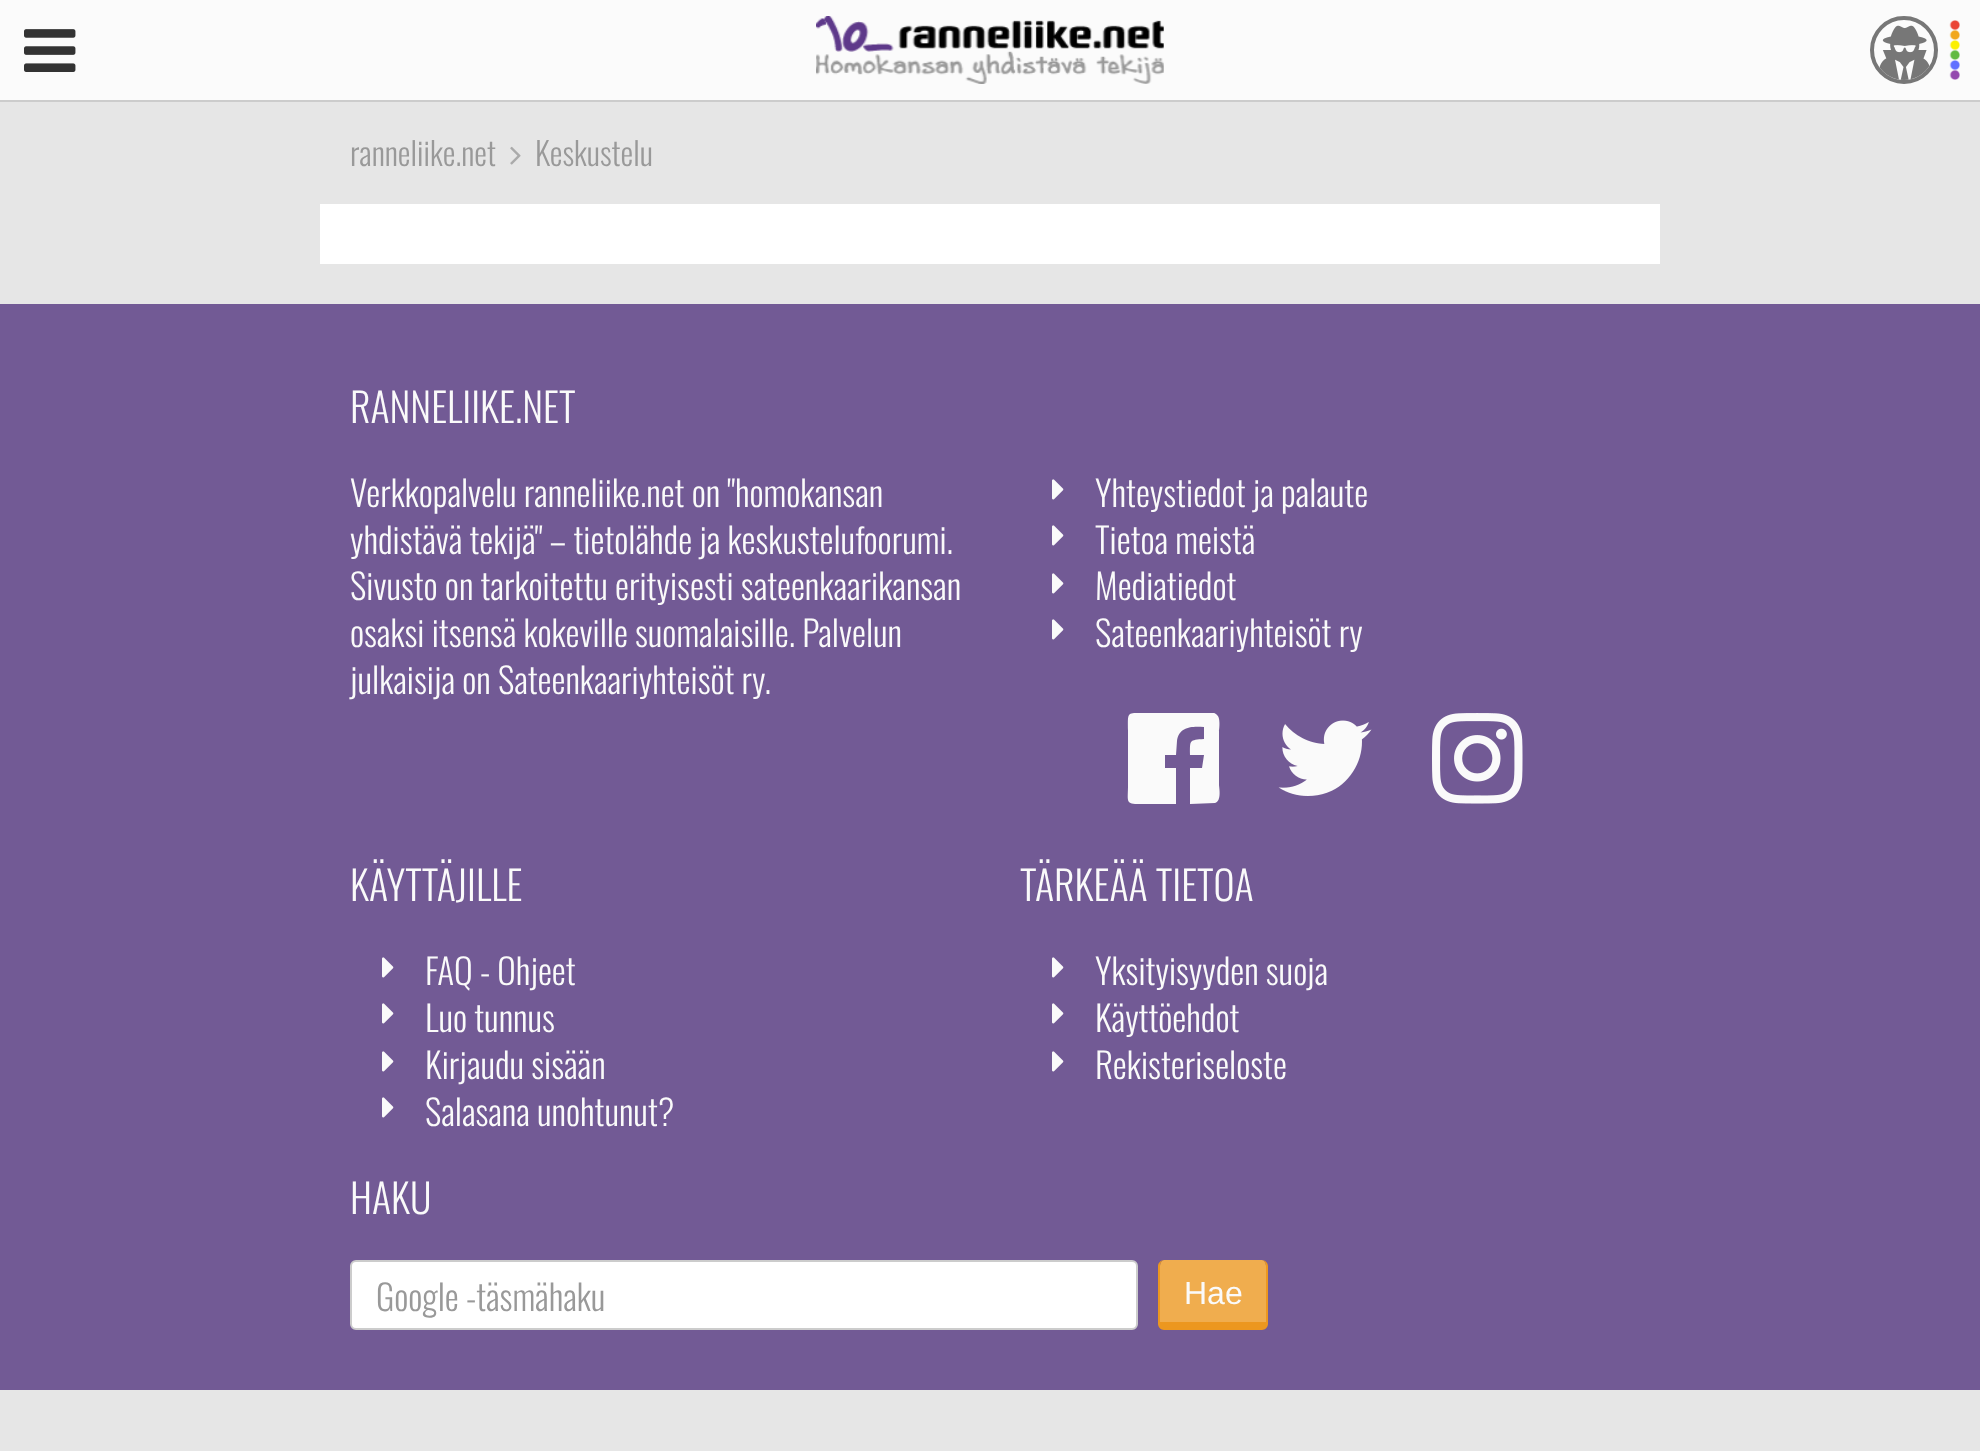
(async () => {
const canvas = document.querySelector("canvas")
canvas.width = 1980
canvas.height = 1451
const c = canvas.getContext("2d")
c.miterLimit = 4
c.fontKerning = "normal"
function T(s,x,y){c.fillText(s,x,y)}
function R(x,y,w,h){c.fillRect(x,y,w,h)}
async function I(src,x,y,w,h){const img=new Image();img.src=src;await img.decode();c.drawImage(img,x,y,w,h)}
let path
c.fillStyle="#e6e6e6"
R(0,0,1980,1451)
c.fillStyle="#fbfbfb"
R(0,0,1980,100)
c.fillStyle="#ccc"
R(0,100,1980,2)
await I("1.png",1949,20,11,60)
await I("2.png",24,29,52,43)
await I("3.png",816,16,348,68)
c.beginPath()
c.arc(1904,50,32,0,7)
c.strokeStyle="#777"
c.lineWidth=4
c.stroke()
await I("4.png",1879,25,51,55)
c.font="300 32px Oswald"
c.fillStyle="#999"
T("ranneliike.net",350,166)
await I("5.png",510,146,11,19)
T("Keskustelu",535,166)
c.fillStyle="#fff"
R(320,204,1340,60)
c.fillStyle="#725a95"
R(0,304,1980,1086)
c.font="300 40px Oswald"
c.fillStyle="#fafafa"
T("RANNELIIKE.NET",350,423)
c.font="300 35.25px Oswald"
T("Verkkopalvelu ranneliike.net on \"homokansan",350,507)
T("yhdistävä tekijä\" – tietolähde ja keskustelufoorumi.",350,554)
T("Sivusto on tarkoitettu erityisesti sateenkaarikansan",350,600)
T("osaksi itsensä kokeville suomalaisille. Palvelun",350,647)
T("julkaisija on Sateenkaariyhteisöt ry.",350,694)
await I("6.png",1052,479,12,21)
T("Yhteystiedot ja palaute",1095,507)
await I("6.png",1052,525,12,21)
T("Tietoa meistä",1095,554)
await I("6.png",1052,573,12,21)
T("Mediatiedot",1095,600)
await I("6.png",1052,619,12,21)
T("Sateenkaariyhteisöt ry",1095,647)
path = new Path2D("M1214 713c1 0 2 1 3 2c4 3 2 16 2 16v54c0 2 3 16-4 18l-25 1v-36h12l2-13h-14c0-15-1-15 14-16v-12c-11-1-25-1-27 14l-1 14h-11v13h11v36h-36c-15 0-12-2-12-19v-54c0-20-2-18 18-18z")
c.fill(path)
await I("7.png",1278,720,94,76)
await I("8.png",1432,713,91,91)
c.font="300 40px Oswald"
T("KÄYTTÄJILLE",350,901)
await I("6.png",382,957,12,21)
c.font="300 35.25px Oswald"
T("FAQ - Ohjeet",425,985)
await I("6.png",382,1003,12,21)
T("Luo tunnus",425,1032)
await I("6.png",382,1051,12,21)
T("Kirjaudu sisään",425,1079)
await I("6.png",382,1097,12,21)
T("Salasana unohtunut?",425,1126)
c.font="300 40px Oswald"
T("TÄRKEÄÄ TIETOA",1020,901)
await I("6.png",1052,957,12,21)
c.font="300 35.25px Oswald"
T("Yksityisyyden suoja",1095,985)
await I("6.png",1052,1003,12,21)
T("Käyttöehdot",1095,1032)
await I("6.png",1052,1051,12,21)
T("Rekisteriseloste",1095,1079)
c.font="300 40px Oswald"
T("HAKU",350,1214)
c.fillStyle="#fff"
c.beginPath()
c.roundRect(351,1261,786,68,5)
c.fill()
c.strokeStyle="#ccc"
c.lineWidth=2
c.stroke()
c.font="300 35.25px Oswald"
c.fillStyle="#999"
T("Google -täsmähaku",376,1311)
c.fillStyle="#f0ad4e"
path = new Path2D("M1164 1260h98c2 0 4 3 4 6v56h-106v-56c0-3 2-6 4-6z")
c.fill(path)
c.fillStyle="#ec971f"
path = new Path2D("M1164 1260h98c3 0 6 3 6 6v58c0 3-3 6-6 6h-98c-3 0-6-3-6-6v-58c0-3 3-6 6-6zm0 0h98c2 0 4 3 4 6v56h-106v-56c0-3 2-6 4-6z")
c.fill(path,"evenodd")
c.font="32px Liberation Sans"
c.fillStyle="#fafafa"
T("Hae",1184,1304)
})()
